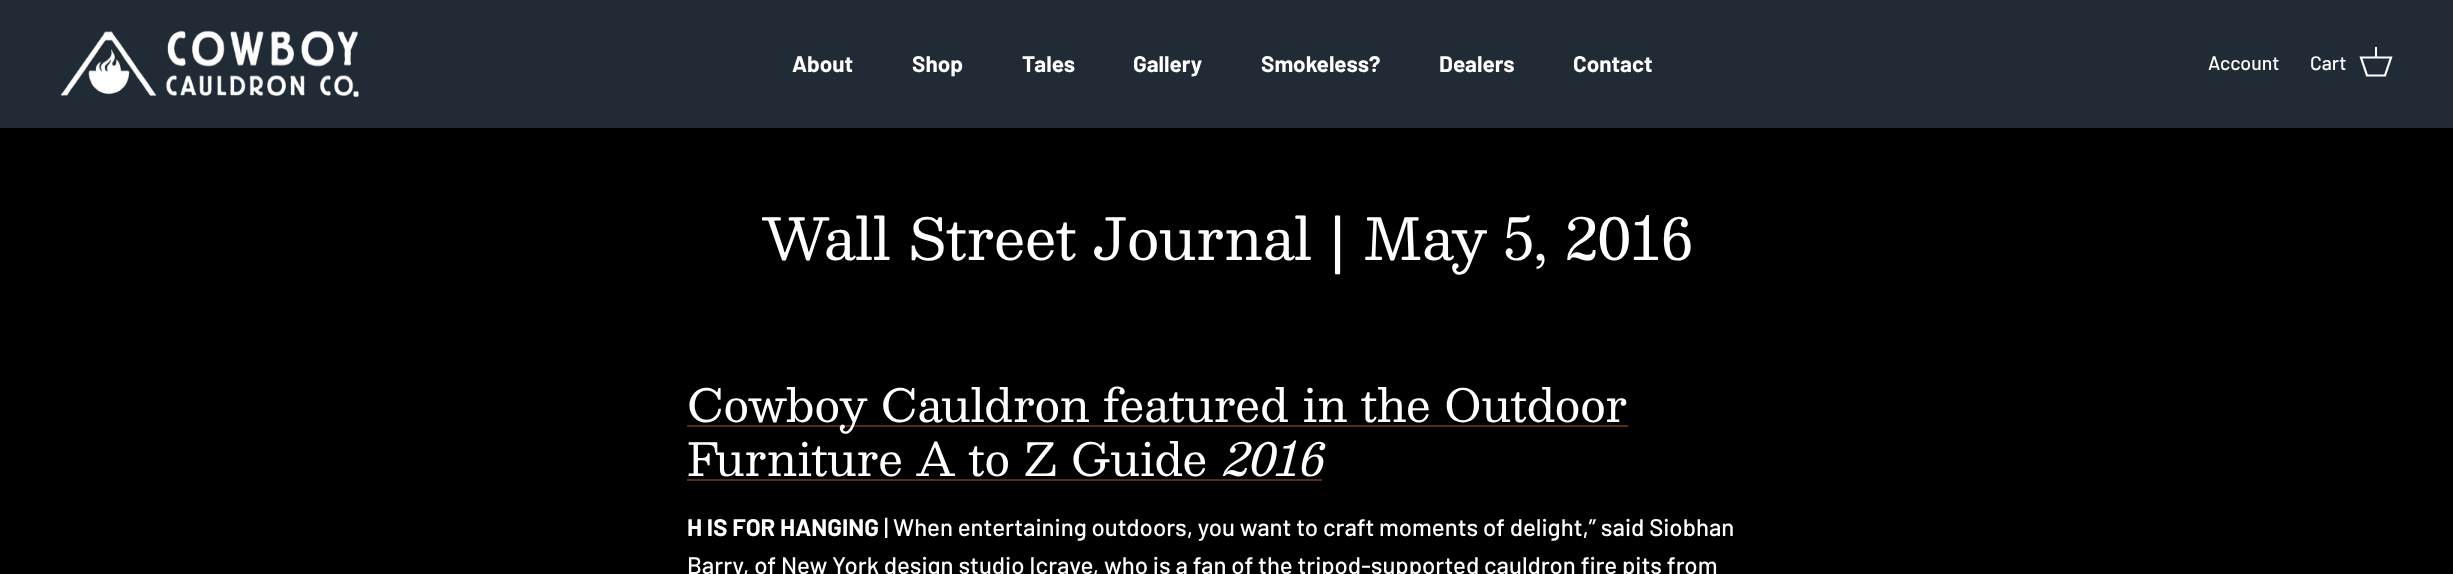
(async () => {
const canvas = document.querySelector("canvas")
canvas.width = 2453
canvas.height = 574
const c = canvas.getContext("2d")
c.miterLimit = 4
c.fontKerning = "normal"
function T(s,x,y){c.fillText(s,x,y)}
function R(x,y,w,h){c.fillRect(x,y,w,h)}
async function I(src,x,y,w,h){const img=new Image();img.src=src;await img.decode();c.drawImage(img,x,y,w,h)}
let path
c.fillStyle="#000"
R(0,0,2453,574)
c.fillStyle="#212b36"
R(0,0,2453,128)
await I("1.png",60,30,299,67)
c.font="bold 22.5px Barlow"
c.fillStyle="#fff"
T("About",792,72)
T("Shop",912,72)
T("Tales",1022,72)
T("Gallery",1133,72)
T("Smokeless?",1261,72)
T("Dealers",1439,72)
T("Contact",1573,72)
c.font="500 19.5px Barlow"
T("Account",2208,70)
T("Cart",2310,70)
path = new Path2D("M2361 57.5h30l-6 18h-18z")
c.strokeStyle="#fff"
c.lineWidth=2.2
c.stroke(path)
R(2375,47,2,11)
c.font="57px Besley"
T("Wall Street Journal | May 5, 2016",762,260)
c.fillStyle="#5a2c16"
R(687,425,941,2)
c.font="45px Besley"
c.fillStyle="#fff"
T("Cowboy Cauldron featured in the Outdoor",687,422)
T("Furniture A to Z Guide",687,476)
c.fillStyle="#5a2c16"
R(687,479,635,2)
c.font="italic 45px Besley"
c.fillStyle="#fff"
T("2016",1221,476)
c.font="bold 24px Barlow"
T("H IS FOR HANGING",687,536)
c.font="500 24px Barlow"
T("| When entertaining outdoors, you want to craft moments of delight,” said Siobhan",884,536)
T("Barry, of New York design studio Icrave, who is a fan of the tripod-supported cauldron fire pits from",687,574)
})()
